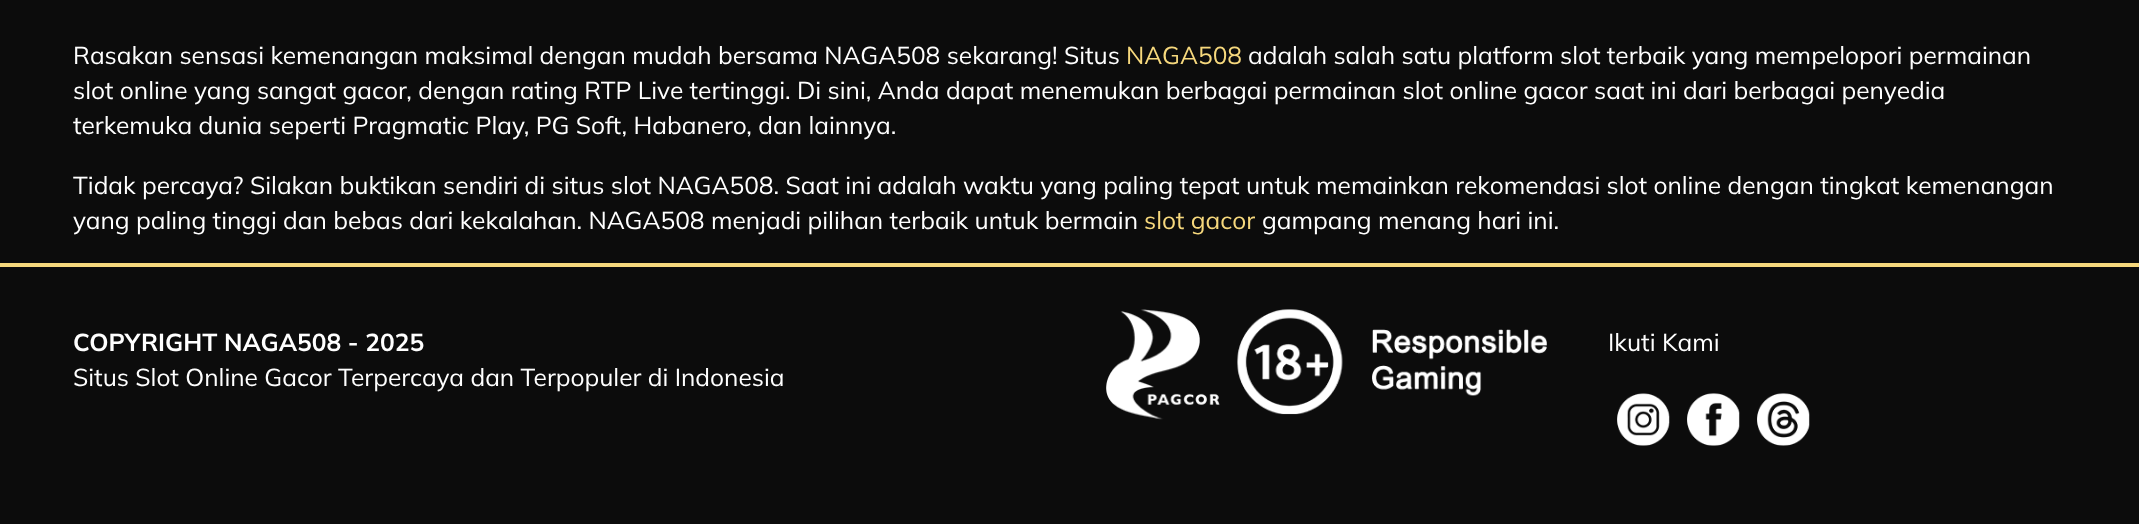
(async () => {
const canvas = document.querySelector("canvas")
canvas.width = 2139
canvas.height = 524
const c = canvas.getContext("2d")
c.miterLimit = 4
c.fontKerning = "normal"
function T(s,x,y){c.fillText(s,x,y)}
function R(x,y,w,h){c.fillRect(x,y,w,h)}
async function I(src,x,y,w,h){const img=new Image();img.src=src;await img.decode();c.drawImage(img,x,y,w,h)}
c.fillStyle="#0c0c0c"
R(0,0,2139,524)
c.font="24.5px Mulish"
c.fillStyle="#fff"
T("Rasakan sensasi kemenangan maksimal dengan mudah bersama NAGA508 sekarang! Situs",73,64)
c.fillStyle="#f6d87d"
T("NAGA508",1126,64)
c.fillStyle="#fff"
T("adalah salah satu platform slot terbaik yang mempelopori permainan",1248,64)
T("slot online yang sangat gacor, dengan rating RTP Live tertinggi. Di sini, Anda dapat menemukan berbagai permainan slot online gacor saat ini dari berbagai penyedia",73,99)
T("terkemuka dunia seperti Pragmatic Play, PG Soft, Habanero, dan lainnya.",73,134)
T("Tidak percaya? Silakan buktikan sendiri di situs slot NAGA508. Saat ini adalah waktu yang paling tepat untuk memainkan rekomendasi slot online dengan tingkat kemenangan",73,194)
T("yang paling tinggi dan bebas dari kekalahan. NAGA508 menjadi pilihan terbaik untuk bermain",73,229)
c.fillStyle="#f6d87d"
T("slot gacor",1144,229)
c.fillStyle="#fff"
T("gampang menang hari ini.",1262,229)
c.fillStyle="#f6d87d"
R(0,263,2139,4)
c.font="bold 24.5px Mulish"
c.fillStyle="#fff"
T("COPYRIGHT NAGA508 - 2025",73,351)
c.font="24.5px Mulish"
T("Situs Slot Online Gacor Terpercaya dan Terpopuler di Indonesia",73,386)
await I("1.png",1106,309,114,111)
await I("2.png",1237,309,310,106)
T("Ikuti Kami",1608,351)
await I("3.png",1617,393,53,53)
await I("4.png",1687,393,53,53)
await I("5.png",1757,393,53,53)
})()
